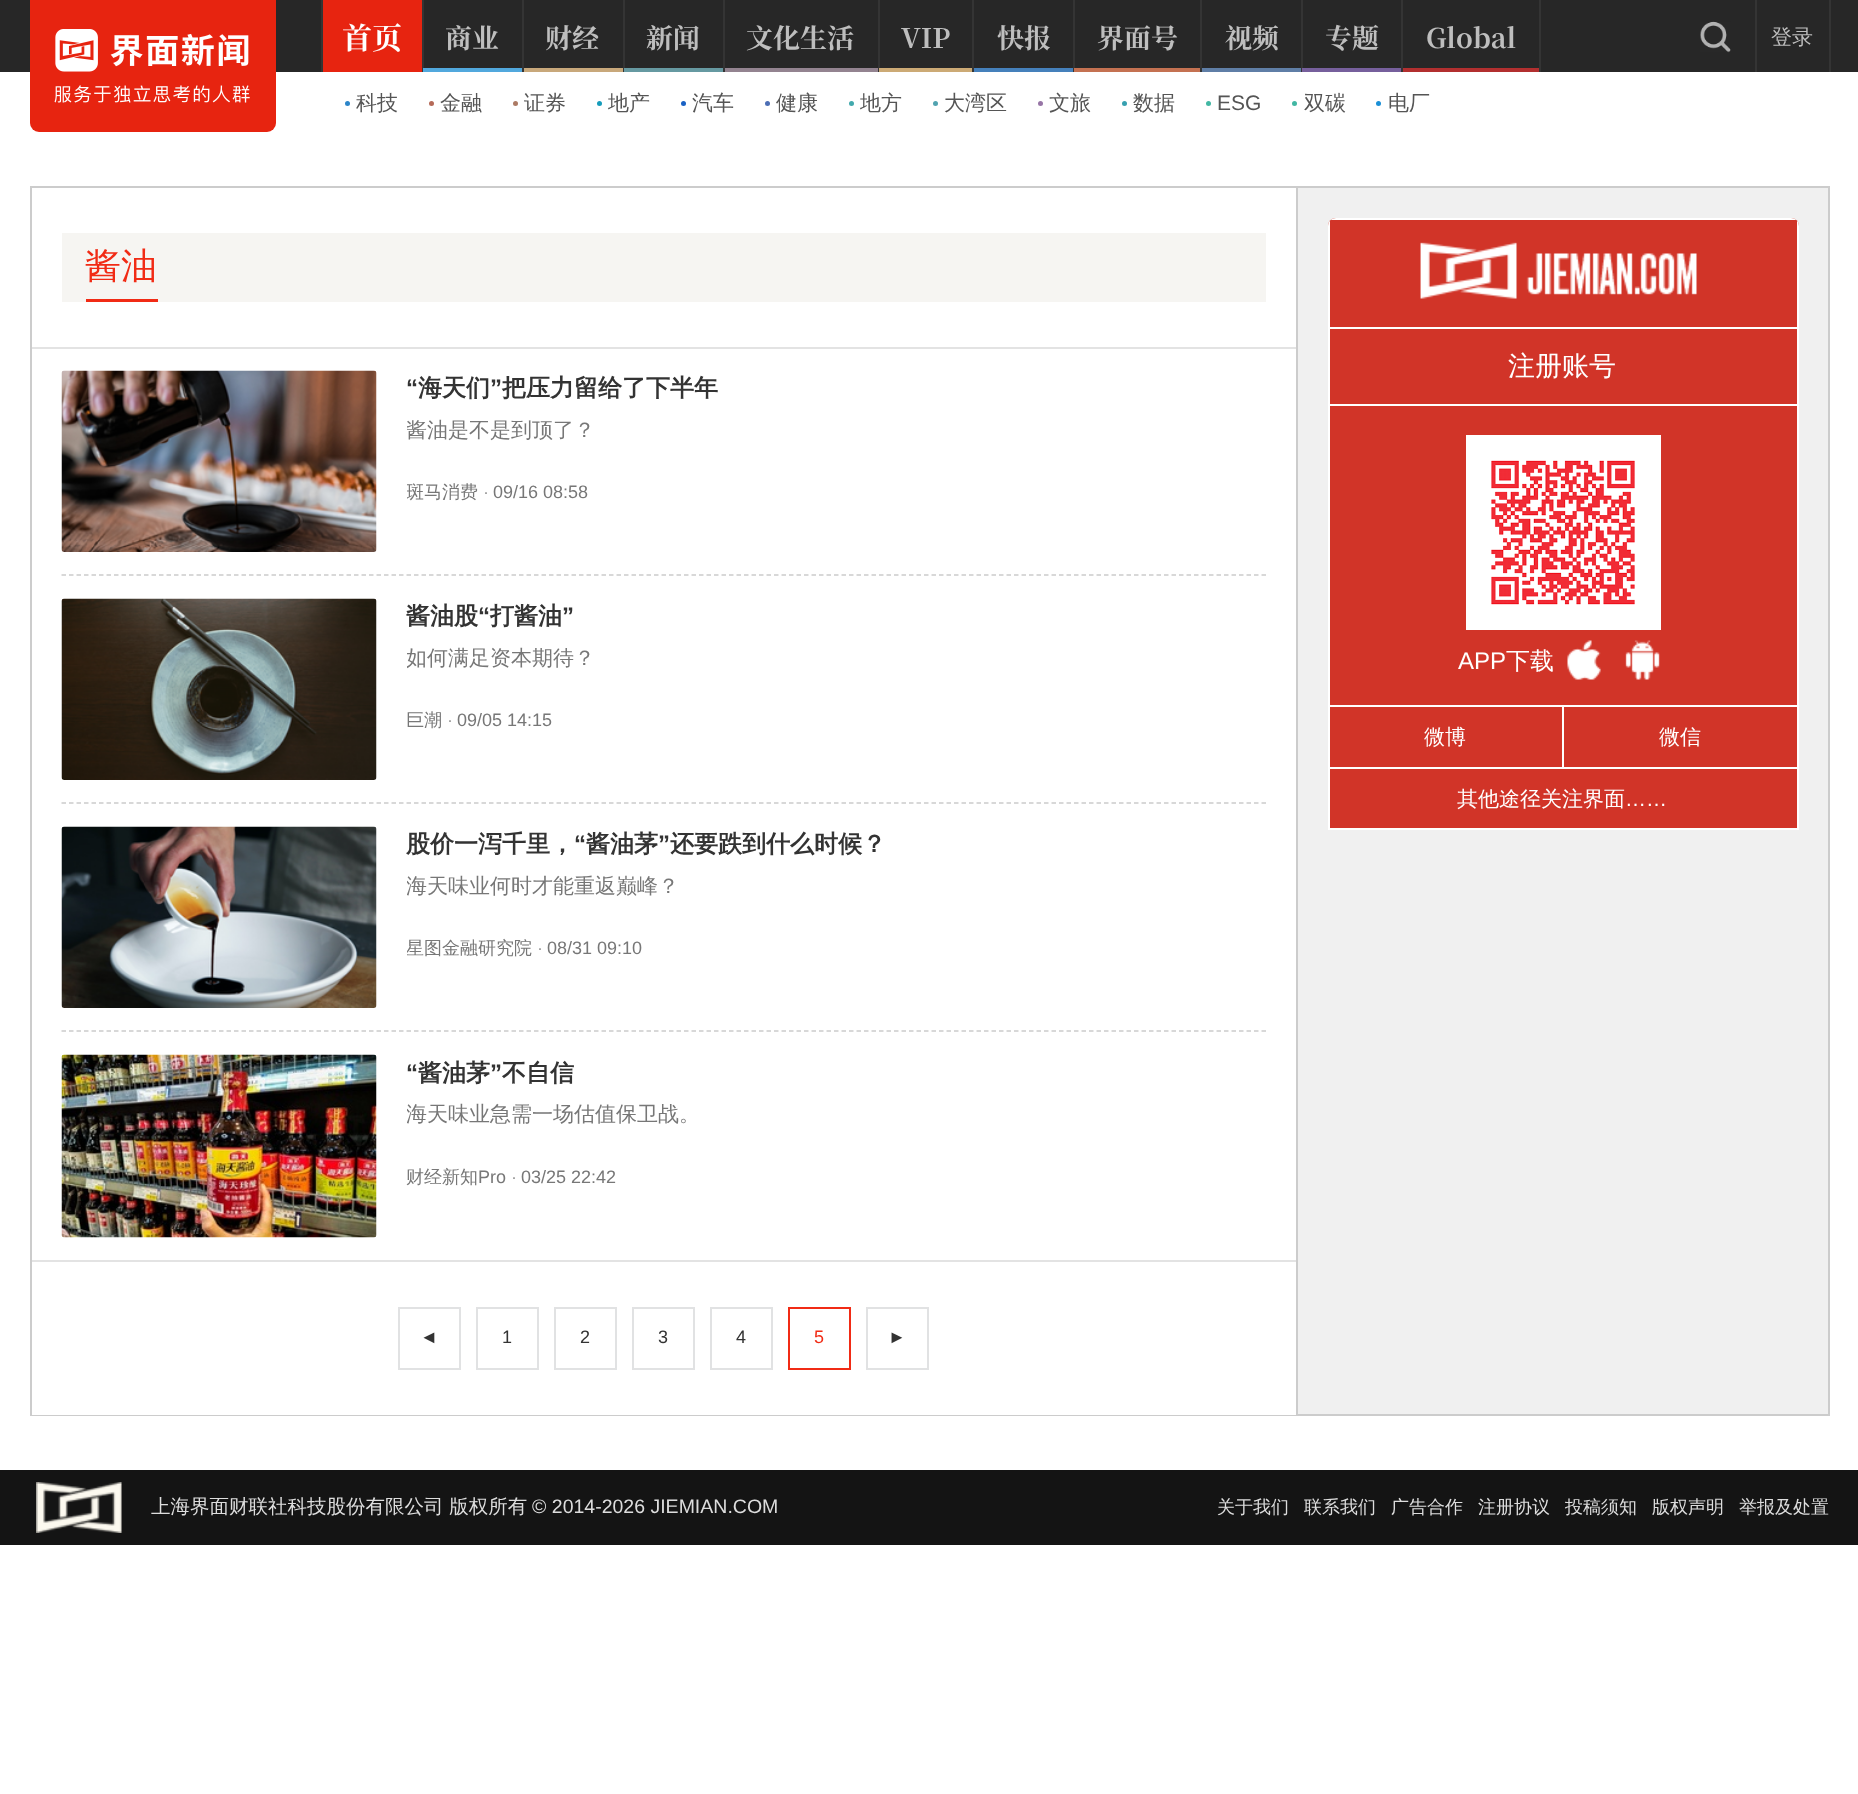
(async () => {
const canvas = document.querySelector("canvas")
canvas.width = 1858
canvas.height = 1794
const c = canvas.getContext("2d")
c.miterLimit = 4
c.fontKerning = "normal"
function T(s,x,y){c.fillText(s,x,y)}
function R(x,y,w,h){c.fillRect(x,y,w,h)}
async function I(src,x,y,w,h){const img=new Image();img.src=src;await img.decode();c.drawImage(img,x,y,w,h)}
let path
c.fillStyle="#fff"
R(0,0,1858,1794)
c.fillStyle="#272727"
R(0,0,1858,72)
c.fillStyle="#e72410"
c.beginPath()
c.roundRect(30,0,246,132,[0,0,9,9])
c.fill()
await I("1.png",54,29,196,74)
c.fillStyle="#343434"
R(422,0,2,72)
R(321,0,2,72)
c.fillStyle="#e72410"
R(323,0,99,72)
c.font="bold 30px Noto Serif SC"
c.fillStyle="#fff"
T("首页",342,49)
c.fillStyle="#2c85c9"
c.beginPath()
c.arc(347.5,103.5,2.5,0,7)
c.fill()
c.font="500 21px WenQuanYi Zen Hei"
c.fillStyle="#555"
T("科技",356,110)
c.fillStyle="#b56a58"
c.beginPath()
c.arc(431.5,103.5,2.5,0,7)
c.fill()
c.fillStyle="#555"
T("金融",440,110)
c.fillStyle="#ac7a64"
c.beginPath()
c.arc(515.5,103.5,2.5,0,7)
c.fill()
c.fillStyle="#555"
T("证券",524,110)
c.fillStyle="#159cbb"
c.beginPath()
c.arc(599.5,103.5,2.5,0,7)
c.fill()
c.fillStyle="#555"
T("地产",608,110)
c.fillStyle="#1961c4"
c.beginPath()
c.arc(683.5,103.5,2.5,0,7)
c.fill()
c.fillStyle="#555"
T("汽车",692,110)
c.fillStyle="#4c6eb5"
c.beginPath()
c.arc(767.5,103.5,2.5,0,7)
c.fill()
c.fillStyle="#555"
T("健康",776,110)
c.fillStyle="#42a9ad"
c.beginPath()
c.arc(851.5,103.5,2.5,0,7)
c.fill()
c.fillStyle="#555"
T("地方",860,110)
c.fillStyle="#51a3b0"
c.beginPath()
c.arc(935.5,103.5,2.5,0,7)
c.fill()
c.fillStyle="#555"
T("大湾区",944,110)
c.fillStyle="#9775a6"
c.beginPath()
c.arc(1040.5,103.5,2.5,0,7)
c.fill()
c.fillStyle="#555"
T("文旅",1049,110)
c.fillStyle="#37a0b0"
c.beginPath()
c.arc(1124.5,103.5,2.5,0,7)
c.fill()
c.fillStyle="#555"
T("数据",1133,110)
c.fillStyle="#42b7a3"
c.beginPath()
c.arc(1208.5,103.5,2.5,0,7)
c.fill()
c.font="21px Liberation Sans"
c.fillStyle="#555"
T("ESG",1217,110)
c.fillStyle="#42b7a3"
c.beginPath()
c.arc(1294.5,103.5,2.5,0,7)
c.fill()
c.font="500 21px WenQuanYi Zen Hei"
c.fillStyle="#555"
T("双碳",1304,110)
c.fillStyle="#1a8fd6"
c.beginPath()
c.arc(1378.5,103.5,2.5,0,7)
c.fill()
c.fillStyle="#555"
T("电厂",1388,110)
c.fillStyle="#343434"
R(522,0,2,72)
c.font="bold 27px Noto Serif SC"
c.fillStyle="#bebebe"
T("商业",445,48)
c.fillStyle="#51a8dd"
R(423,68,99,4)
c.fillStyle="#343434"
R(623,0,2,72)
c.fillStyle="#bebebe"
T("财经",545,48)
c.fillStyle="#c8a87b"
R(524,68,99,4)
c.fillStyle="#343434"
R(723,0,2,72)
c.fillStyle="#bebebe"
T("新闻",646,48)
c.fillStyle="#6699a1"
R(624,68,99,4)
c.fillStyle="#343434"
R(878,0,2,72)
c.fillStyle="#bebebe"
T("文化生活",746,48)
c.fillStyle="#938390"
R(725,68,153,4)
c.fillStyle="#343434"
R(972,0,2,72)
c.fillStyle="#bebebe"
T("VIP",901,48)
c.fillStyle="#ccaa75"
R(879,68,93,4)
c.fillStyle="#343434"
R(1073,0,2,72)
c.fillStyle="#bebebe"
T("快报",997,48)
c.fillStyle="#4580bb"
R(974,68,99,4)
c.fillStyle="#343434"
R(1200,0,2,72)
c.fillStyle="#bebebe"
T("界面号",1097,48)
c.fillStyle="#c47151"
R(1074,68,126,4)
c.fillStyle="#343434"
R(1301,0,2,72)
c.fillStyle="#bebebe"
T("视频",1225,48)
c.fillStyle="#5f7ea6"
R(1202,68,99,4)
c.fillStyle="#343434"
R(1401,0,2,72)
c.fillStyle="#bebebe"
T("专题",1325,48)
c.fillStyle="#765f9c"
R(1302,68,99,4)
c.fillStyle="#343434"
R(1539,0,2,72)
c.fillStyle="#bebebe"
T("Global",1426,48)
c.fillStyle="#b22f2f"
R(1403,68,136,4)
await I("2.png",1700,21,31,32)
c.fillStyle="#343434"
R(1829,0,2,72)
R(1755,0,2,72)
c.font="500 21px WenQuanYi Zen Hei"
c.fillStyle="#bebebe"
T("登录",1771,44)
c.fillStyle="#f0f0f0"
R(1298,188,530,1226)
c.strokeStyle="#ccc"
c.lineWidth=2
c.strokeRect(31,187,1798,1228)
c.fillStyle="#fff"
R(32,1414,1264,1)
c.fillStyle="#ccc"
R(1296,188,2,1227)
c.fillStyle="#e3e3e3"
R(32,347,1264,2)
c.fillStyle="#f6f5f2"
R(62,233,1204,69)
c.fillStyle="#f12b15"
R(86,299,72,3)
c.font="500 36px WenQuanYi Zen Hei"
T("酱油",85,278)
c.fillStyle="#e3e3e3"
R(32,1260,1264,2)
path = new Path2D("M61.5 575h1204.5")
c.lineWidth=1.5
c.setLineDash([4.5,3])
c.stroke(path)
await I("3.png",61,370,316,182)
c.font="bold 24px Liberation Sans"
c.fillStyle="#333"
T("“",406,396)
c.font="bold 24px WenQuanYi Zen Hei"
T("海天们",418,396)
c.font="bold 24px Liberation Sans"
T("”",490,396)
c.font="bold 24px WenQuanYi Zen Hei"
T("把压力留给了下半年",502,396)
c.save()
c.beginPath()
c.rect(407,414,859,60)
c.clip()
c.font="500 21px WenQuanYi Zen Hei"
c.fillStyle="#777"
T("酱油是不是到顶了？",406,437)
c.restore()
c.save()
c.beginPath()
c.rect(407,474,859,38)
c.clip()
c.font="500 18px WenQuanYi Zen Hei"
c.fillStyle="#777"
T("斑马消费",406,498)
c.restore()
c.font="18px Liberation Sans"
c.fillStyle="#999"
T("·",483,498)
c.fillStyle="#777"
T("09/16 08:58",493,498)
path = new Path2D("M61.5 803h1204.5")
c.stroke(path)
await I("4.png",61,598,316,182)
c.font="bold 24px WenQuanYi Zen Hei"
c.fillStyle="#333"
T("酱油股",406,624)
c.font="bold 24px Liberation Sans"
T("“",478,624)
c.font="bold 24px WenQuanYi Zen Hei"
T("打酱油",490,624)
c.font="bold 24px Liberation Sans"
T("”",562,624)
c.save()
c.beginPath()
c.rect(407,642,859,60)
c.clip()
c.font="500 21px WenQuanYi Zen Hei"
c.fillStyle="#777"
T("如何满足资本期待？",406,665)
c.restore()
c.font="500 18px WenQuanYi Zen Hei"
c.fillStyle="#777"
T("巨潮",406,726)
c.font="18px Liberation Sans"
c.fillStyle="#999"
T("·",447,726)
c.fillStyle="#777"
T("09/05 14:15",457,726)
path = new Path2D("M61.5 1031h1204.5")
c.stroke(path)
await I("5.png",61,826,316,182)
c.font="bold 24px WenQuanYi Zen Hei"
c.fillStyle="#333"
T("股价一泻千里，",406,852)
c.font="bold 24px Liberation Sans"
T("“",574,852)
c.font="bold 24px WenQuanYi Zen Hei"
T("酱油茅",586,852)
c.font="bold 24px Liberation Sans"
T("”",658,852)
c.font="bold 24px WenQuanYi Zen Hei"
T("还要跌到什么时候？",670,852)
c.save()
c.beginPath()
c.rect(407,870,859,60)
c.clip()
c.font="500 21px WenQuanYi Zen Hei"
c.fillStyle="#777"
T("海天味业何时才能重返巅峰？",406,893)
c.restore()
c.save()
c.beginPath()
c.rect(407,930,859,38)
c.clip()
c.font="500 18px WenQuanYi Zen Hei"
c.fillStyle="#777"
T("星图金融研究院",406,954)
c.restore()
c.font="18px Liberation Sans"
c.fillStyle="#999"
T("·",537,954)
c.fillStyle="#777"
T("08/31 09:10",547,954)
await I("6.png",61,1054,316,184)
c.font="bold 24px Liberation Sans"
c.fillStyle="#333"
T("“",406,1081)
c.font="bold 24px WenQuanYi Zen Hei"
T("酱油茅",418,1081)
c.font="bold 24px Liberation Sans"
T("”",490,1081)
c.font="bold 24px WenQuanYi Zen Hei"
T("不自信",502,1081)
c.save()
c.beginPath()
c.rect(407,1098,859,60)
c.clip()
c.font="500 21px WenQuanYi Zen Hei"
c.fillStyle="#777"
T("海天味业急需一场估值保卫战。",406,1121)
c.restore()
c.font="500 18px WenQuanYi Zen Hei"
c.fillStyle="#777"
T("财经新知",406,1183)
c.font="18px Liberation Sans"
T("Pro",478,1183)
c.fillStyle="#999"
T("·",511,1183)
c.fillStyle="#777"
T("03/25 22:42",521,1183)
c.strokeStyle="#e1e2e3"
c.lineWidth=2
c.setLineDash([])
c.strokeRect(399,1308,61,61)
c.fillStyle="#333"
T("◄",420,1343)
c.strokeRect(477,1308,61,61)
T("1",502,1343)
c.strokeRect(555,1308,61,61)
T("2",580,1343)
c.strokeRect(633,1308,61,61)
T("3",658,1343)
c.strokeRect(711,1308,61,61)
T("4",736,1343)
c.strokeStyle="#f12b15"
c.strokeRect(789,1308,61,61)
c.fillStyle="#f12b15"
T("5",814,1343)
c.strokeStyle="#e1e2e3"
c.strokeRect(867,1308,61,61)
c.fillStyle="#333"
T("►",888,1343)
c.fillStyle="#d13428"
c.beginPath()
c.roundRect(1328,218,471,612,[8,8,0,0])
c.fill()
c.save()
c.beginPath()
c.roundRect(1328,218,471,642,8)
c.clip()
c.fillStyle="#fff"
R(1328,218,471,2)
c.restore()
c.fillStyle="#fff"
R(1328,327,471,2)
R(1328,404,471,2)
R(1562,705,237,2)
R(1328,767,471,2)
R(1797,767,2,63)
R(1797,705,2,63)
R(1797,404,2,303)
R(1797,327,2,78)
c.save()
c.beginPath()
c.roundRect(1328,218,471,642,8)
c.clip()
R(1797,218,2,111)
c.restore()
R(1562,705,2,63)
R(1328,705,235,2)
R(1328,828,471,2)
R(1328,767,2,63)
R(1328,705,2,63)
R(1328,404,2,303)
R(1328,327,2,78)
c.save()
c.beginPath()
c.roundRect(1328,218,471,642,8)
c.clip()
R(1328,218,2,111)
c.restore()
await I("7.png",1420,242,277,57)
c.font="500 27px WenQuanYi Zen Hei"
T("注册账号",1508,375)
R(1466,435,195,195)
await I("8.png",1491,460,144,145)
c.font="24px Liberation Sans"
T("APP",1458,669)
c.font="500 24px WenQuanYi Zen Hei"
T("下载",1506,669)
await I("9.png",1567,640,34,40)
await I("10.png",1625,640,35,40)
c.font="500 21px WenQuanYi Zen Hei"
T("微博",1424,744)
T("微信",1659,744)
T("其他途径关注界面",1457,806)
c.font="21px Liberation Sans"
T("……",1625,806)
c.fillStyle="#141414"
R(0,1470,1858,75)
await I("11.png",36,1482,86,51)
c.font="500 19.5px WenQuanYi Zen Hei"
c.fillStyle="#ddd"
T("上海界面财联社科技股份有限公司 版权所有",151,1513)
c.font="19.5px Liberation Sans"
T("© 2014-2026 JIEMIAN.COM",532,1513)
c.font="500 18px WenQuanYi Zen Hei"
T("关于我们",1217,1513)
T("联系我们",1304,1513)
T("广告合作",1391,1513)
T("注册协议",1478,1513)
T("投稿须知",1565,1513)
T("版权声明",1652,1513)
T("举报及处置",1739,1513)
})()
